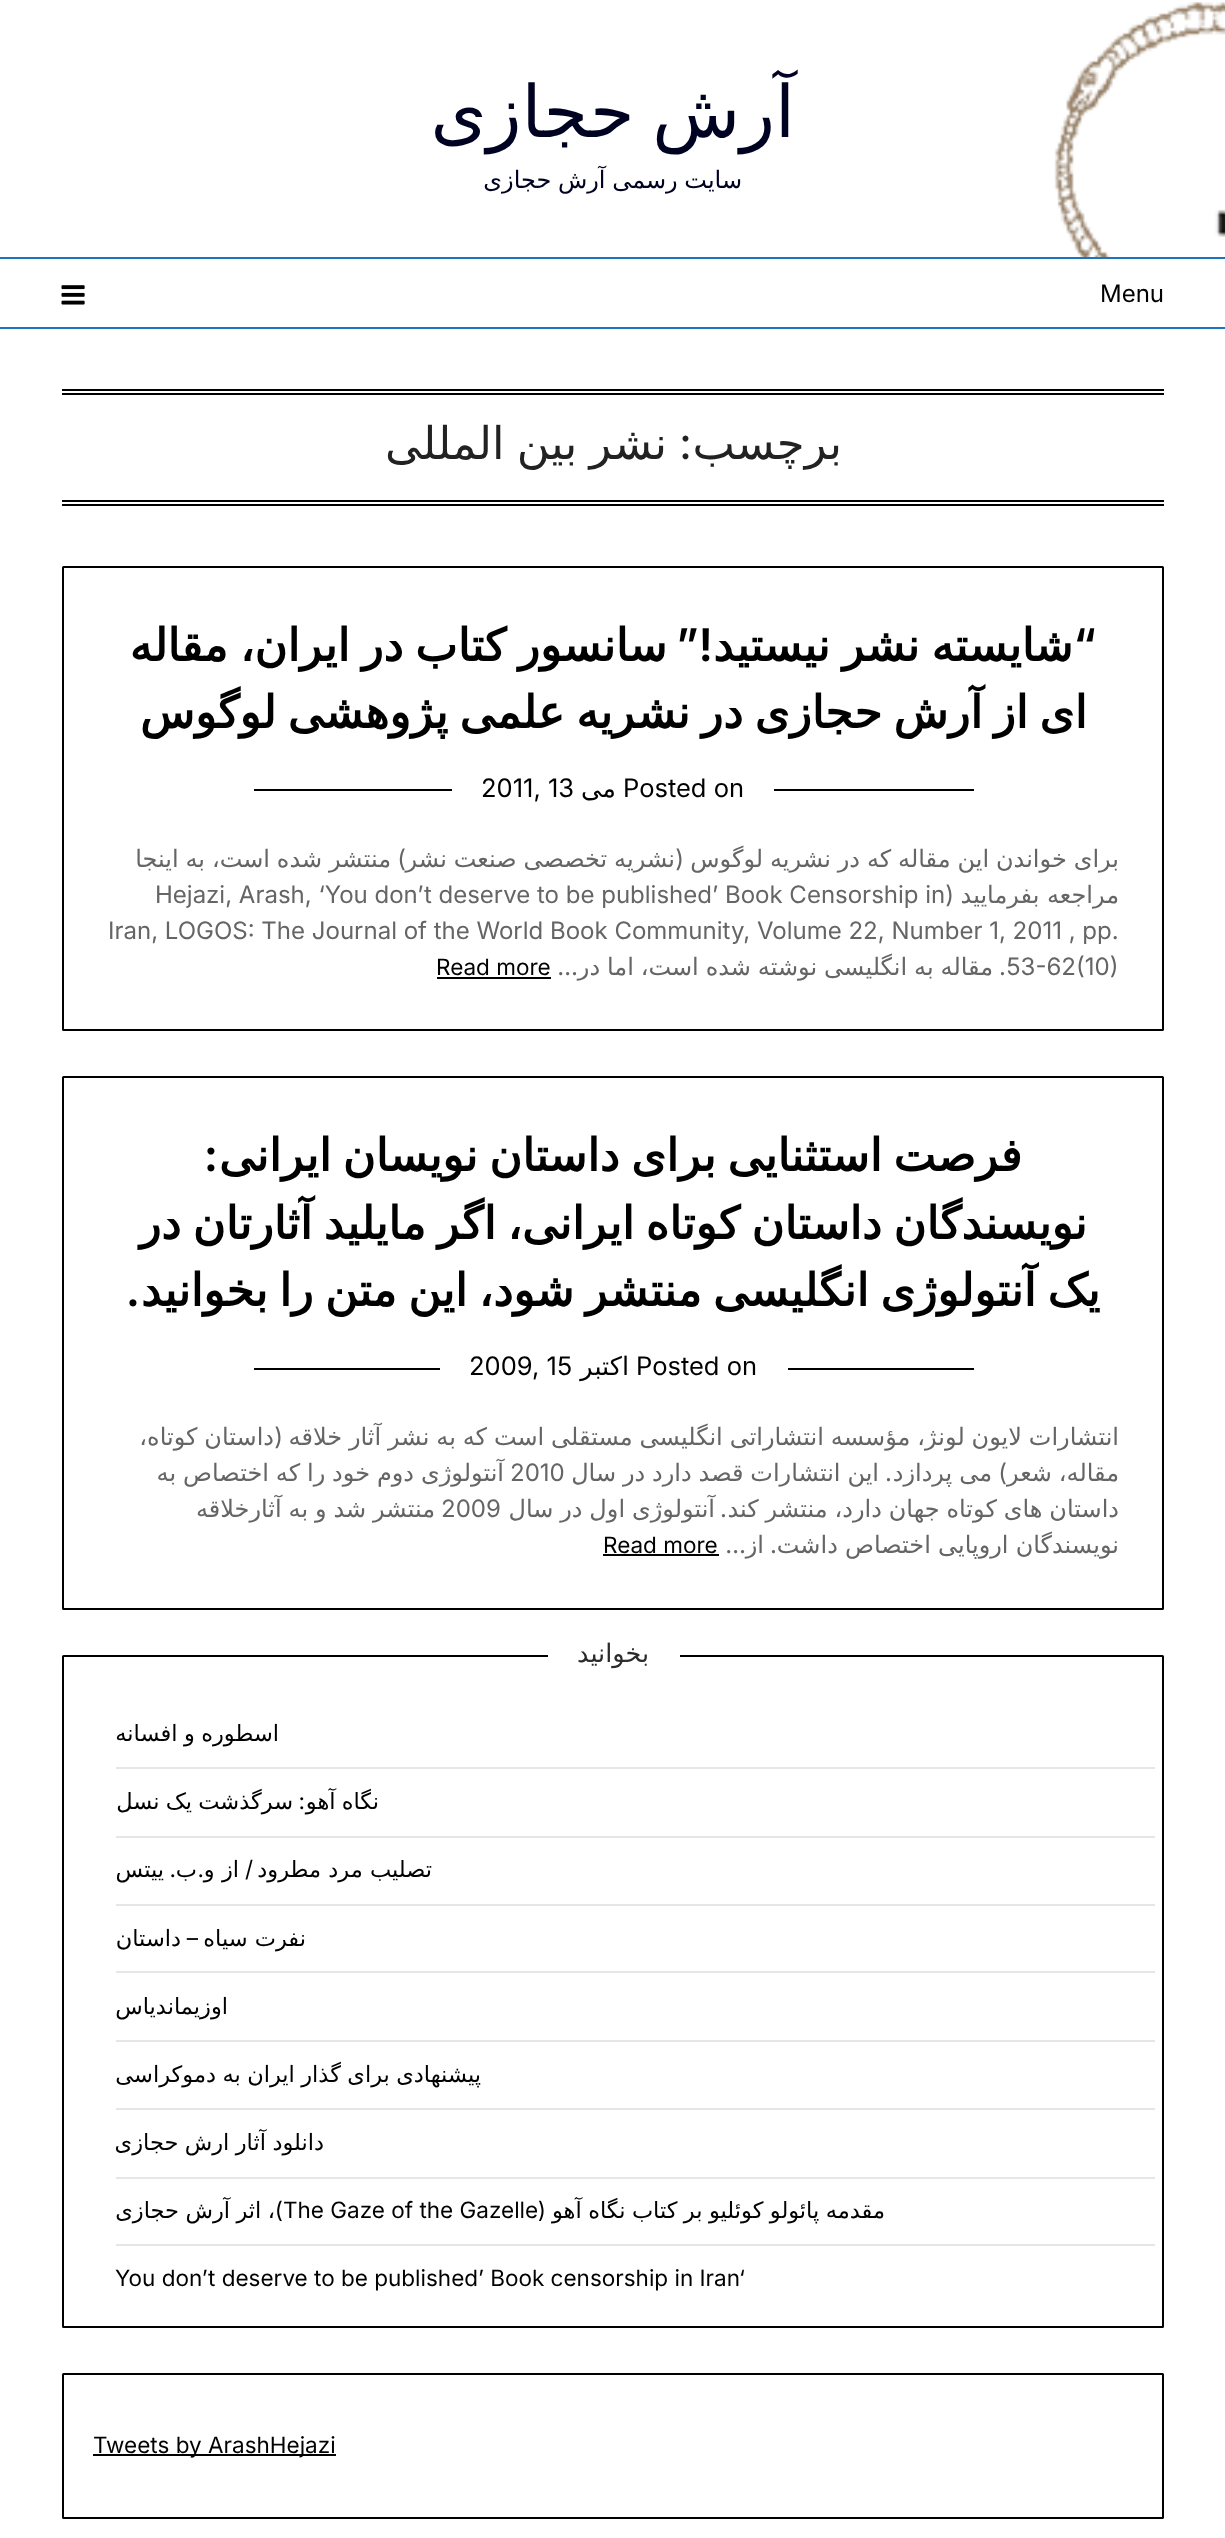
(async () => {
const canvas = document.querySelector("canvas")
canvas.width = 1225
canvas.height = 2538
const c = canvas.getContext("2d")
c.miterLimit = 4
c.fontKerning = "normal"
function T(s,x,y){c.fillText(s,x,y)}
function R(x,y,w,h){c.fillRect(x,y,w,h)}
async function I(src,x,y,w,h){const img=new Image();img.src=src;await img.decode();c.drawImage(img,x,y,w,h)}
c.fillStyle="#fff"
R(0,0,1225,2538)
await I("1.png",0,2,1225,255)
c.wordSpacing="-5px"
c.direction="rtl"
c.font="72px DejaVu Sans"
c.fillStyle="#000222"
T("آرش حجازی",795,137)
c.wordSpacing="-1px"
c.font="24px DejaVu Sans"
T("سایت رسمی آرش حجازی",742,188)
c.fillStyle="#1e73be"
R(0,257,1225,2)
R(0,327,1225,2)
c.wordSpacing="0px"
c.direction="ltr"
c.font="24px Inter"
c.fillStyle="#000"
T("Menu",1100,302)
await I("2.png",61,285,24,20)
R(62,389,1102,2)
R(62,393,1102,2)
R(62,500,1102,2)
R(62,504,1102,2)
c.direction="rtl"
c.font="45px DejaVu Sans"
c.fillStyle="#222"
T("برچسب",842,459)
c.font="45px Inter"
T(":",692,459)
c.wordSpacing="-2px"
c.font="45px DejaVu Sans"
T("نشر بین المللی",667,459)
c.beginPath()
c.roundRect(63,567,1100,463,.5)
c.strokeStyle="#000"
c.lineWidth=2
c.stroke()
c.wordSpacing="0px"
c.font="600 45px Inter"
c.fillStyle="#000"
T("“",1096,661)
c.wordSpacing="-2.5px"
c.font="bold 45px DejaVu Sans"
T("شایسته نشر نیستید",1073,661)
c.wordSpacing="0px"
c.font="600 45px Inter"
T("!”",713,661)
c.wordSpacing="-2.5px"
c.font="bold 45px DejaVu Sans"
T("سانسور کتاب در ایران، مقاله",667,661)
c.wordSpacing="-3px"
T("ای از آرش حجازی در نشریه علمی پژوهشی لوگوس",1087,728)
R(254,789,720,2)
c.fillStyle="#fff"
R(452,789,322,2)
c.wordSpacing="0px"
c.direction="ltr"
c.font="25.5px Inter"
c.fillStyle="#000"
T("Posted on",623,797)
c.direction="rtl"
c.font="25.5px DejaVu Sans"
T("می",616,797)
c.direction="ltr"
c.font="25.5px Inter"
T("2011, 13",481,797)
c.wordSpacing="-0.75px"
c.direction="rtl"
c.font="24px DejaVu Sans"
c.fillStyle="#656565"
T("برای خواندن این مقاله که در نشریه لوگوس",1119,867)
c.wordSpacing="0px"
c.font="24px Inter"
T("(",684,867)
c.wordSpacing="-0.75px"
c.font="24px DejaVu Sans"
T("نشریه تخصصی صنعت نشر",675,867)
c.wordSpacing="0px"
c.font="24px Inter"
T(")",406,867)
c.wordSpacing="-0.75px"
c.font="24px DejaVu Sans"
T("منتشر شده است، به اینجا",391,867)
c.wordSpacing="0px"
T("مراجعه بفرمایید",1119,903)
c.font="24px Inter"
T("(",954,903)
c.direction="ltr"
T("Hejazi, Arash, ‘You don’t deserve to be published’ Book Censorship in",155,903)
T("Iran, LOGOS: The Journal of the World Book Community, Volume 22, Number 1, 2011 , pp.",108,939)
T("53-62(10)",1006,975)
c.direction="rtl"
T(".",1006,975)
c.wordSpacing="-0.75px"
c.font="24px DejaVu Sans"
T("مقاله به انگلیسی نوشته شده است، اما در",993,975)
c.wordSpacing="0px"
c.font="24px Inter"
T("…",578,975)
c.direction="ltr"
c.font="22.5px Inter"
c.fillStyle="#000"
T("Read more",436,975)
R(437,977,114,2)
c.beginPath()
c.roundRect(63,1077,1100,532,.5)
c.stroke()
c.wordSpacing="-3px"
c.direction="rtl"
c.font="bold 45px DejaVu Sans"
T("فرصت استثنایی برای داستان نویسان ایرانی",1022,1171)
c.wordSpacing="0px"
c.font="600 45px Inter"
T(":",218,1171)
c.wordSpacing="-3px"
c.font="bold 45px DejaVu Sans"
T("نویسندگان داستان کوتاه ایرانی، اگر مایلید آثارتان در",1087,1239)
T("یک آنتولوژی انگلیسی منتشر شود، این متن را بخوانید",1100,1306)
c.wordSpacing="0px"
c.font="600 45px Inter"
T(".",140,1306)
R(254,1368,720,2)
c.fillStyle="#fff"
R(440,1368,348,2)
c.direction="ltr"
c.font="25.5px Inter"
c.fillStyle="#000"
T("Posted on",636,1375)
c.direction="rtl"
c.font="25.5px DejaVu Sans"
T("اکتبر",629,1375)
c.direction="ltr"
c.font="25.5px Inter"
T("2009, 15",469,1375)
c.wordSpacing="-0.75px"
c.direction="rtl"
c.font="24px DejaVu Sans"
c.fillStyle="#656565"
T("انتشارات لایون لونژ، مؤسسه انتشاراتی انگلیسی مستقلی است که به نشر آثار خلاقه",1119,1445)
c.wordSpacing="0px"
c.font="24px Inter"
T("(",283,1445)
c.wordSpacing="-0.75px"
c.font="24px DejaVu Sans"
T("داستان کوتاه،",274,1445)
T("مقاله، شعر",1119,1481)
c.wordSpacing="0px"
c.font="24px Inter"
T(")",1007,1481)
c.wordSpacing="-0.75px"
c.font="24px DejaVu Sans"
T("می پردازد",992,1481)
c.wordSpacing="0px"
c.font="24px Inter"
T(".",892,1481)
c.wordSpacing="-0.75px"
c.font="24px DejaVu Sans"
T("این انتشارات قصد دارد در سال",879,1481)
c.wordSpacing="0px"
c.direction="ltr"
c.font="24px Inter"
T("2010",510,1481)
c.wordSpacing="-0.75px"
c.direction="rtl"
c.font="24px DejaVu Sans"
T("آنتولوژی دوم خود را که اختصاص به",504,1481)
T("داستان های کوتاه جهان دارد، منتشر کند",1119,1517)
c.wordSpacing="0px"
c.font="24px Inter"
T(".",727,1517)
c.wordSpacing="-0.75px"
c.font="24px DejaVu Sans"
T("آنتولوژی اول در سال",715,1517)
c.wordSpacing="0px"
c.direction="ltr"
c.font="24px Inter"
T("2009",441,1517)
c.wordSpacing="-0.75px"
c.direction="rtl"
c.font="24px DejaVu Sans"
T("منتشر شد و به آثارخلاقه",435,1517)
c.wordSpacing="-0.5px"
T("نویسندگان اروپایی اختصاص داشت",1119,1553)
c.wordSpacing="0px"
c.font="24px Inter"
T(".",777,1553)
c.font="24px DejaVu Sans"
T("از",764,1553)
c.font="24px Inter"
T("…",746,1553)
c.direction="ltr"
c.font="22.5px Inter"
c.fillStyle="#000"
T("Read more",603,1553)
R(603,1554,116,2)
c.beginPath()
c.roundRect(63,1656,1100,671,.5)
c.stroke()
c.fillStyle="#fff"
R(548,1655,132,2)
c.direction="rtl"
c.font="25.5px DejaVu Sans"
c.fillStyle="#2b2b2b"
T("بخوانید",649,1662)
c.fillStyle="#e6e6e6"
R(116,1767,1039,2)
c.wordSpacing="-0.75px"
c.font="22.5px DejaVu Sans"
c.fillStyle="#000"
T("اسطوره و افسانه",279,1741)
c.fillStyle="#e6e6e6"
R(116,1836,1039,2)
c.wordSpacing="-1px"
c.fillStyle="#000"
T("نگاه آهو",379,1809)
c.wordSpacing="0px"
c.font="22.5px Inter"
T(":",305,1809)
c.wordSpacing="-1px"
c.font="22.5px DejaVu Sans"
T("سرگذشت یک نسل",293,1809)
c.fillStyle="#e6e6e6"
R(116,1904,1039,2)
c.wordSpacing="0px"
c.fillStyle="#000"
T("تصلیب مرد مطرود",432,1877)
c.font="22.5px Inter"
T("/",253,1877)
T(".",204,1877)
c.font="22.5px DejaVu Sans"
T("از و",239,1877)
T("ب",197,1877)
c.font="22.5px Inter"
T(".",176,1877)
c.font="22.5px DejaVu Sans"
T("ییتس",164,1877)
c.fillStyle="#e6e6e6"
R(116,1971,1039,2)
c.fillStyle="#000"
T("نفرت سیاه",306,1946)
c.font="22.5px Inter"
T("–",198,1946)
c.font="22.5px DejaVu Sans"
T("داستان",181,1946)
c.fillStyle="#e6e6e6"
R(116,2040,1039,2)
c.fillStyle="#000"
T("اوزیماندیاس",228,2014)
c.fillStyle="#e6e6e6"
R(116,2108,1039,2)
c.wordSpacing="-0.75px"
c.fillStyle="#000"
T("پیشنهادی برای گذار ایران به دموکراسی",481,2082)
c.fillStyle="#e6e6e6"
R(116,2177,1039,2)
c.fillStyle="#000"
T("دانلود آثار ارش حجازی",324,2150)
c.fillStyle="#e6e6e6"
R(116,2244,1039,2)
c.fillStyle="#000"
T("مقدمه پائولو کوئلیو بر کتاب نگاه آهو",885,2218)
c.wordSpacing="0px"
c.font="22.5px Inter"
T("(",546,2218)
c.direction="ltr"
T("The Gaze of the Gazelle",283,2218)
c.wordSpacing="-0.75px"
c.direction="rtl"
c.font="22.5px DejaVu Sans"
T("، اثر آرش حجازی",275,2218)
c.wordSpacing="0px"
c.font="22.5px Inter"
T(")",283,2218)
c.direction="ltr"
T("You don’t deserve to be published’ Book censorship in Iran‘",115,2286)
c.beginPath()
c.roundRect(63,2374,1100,144,.5)
c.stroke()
R(93,2454,243,2)
T("Tweets by ArashHejazi",93,2453)
})()
